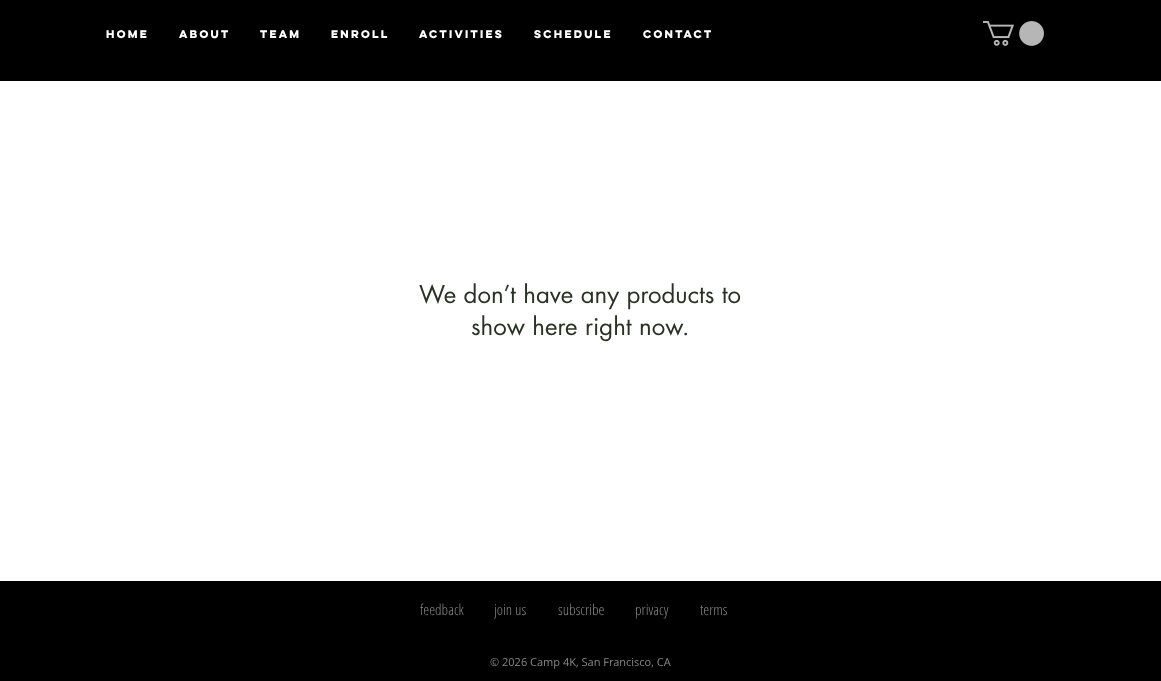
(async () => {
const canvas = document.querySelector("canvas")
canvas.width = 1161
canvas.height = 681
const c = canvas.getContext("2d")
c.miterLimit = 4
c.fontKerning = "normal"
function T(s,x,y){c.fillText(s,x,y)}
function R(x,y,w,h){c.fillRect(x,y,w,h)}
async function I(src,x,y,w,h){const img=new Image();img.src=src;await img.decode();c.drawImage(img,x,y,w,h)}
c.fillStyle="#fff"
R(0,0,1161,681)
c.fillStyle="#000"
R(0,0,1161,81)
c.font="bold 10px 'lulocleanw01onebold'"
c.fillStyle="#fff"
T("Home",106,38)
T("About",179,38)
T("Team",260,38)
T("Enroll",331,38)
T("Activities",419,38)
T("Schedule",534,38)
T("Contact",643,38)
await I("1.png",983,21,61,25)
c.font="24px futura"
c.fillStyle="#293323"
T("We don’t have any products to",419,303)
T("show here right now.",471,335)
c.fillStyle="#000"
R(0,581,1161,100)
c.font="300 15px Open Sans Condensed"
c.fillStyle="#888"
T("feedback",420,615)
T("join us",494,615)
T("subscribe",558,615)
T("privacy",635,615)
T("terms",700,615)
c.font="11px Open Sans"
T("© 2026 Camp 4K, San Francisco, CA",490,666)
})()
